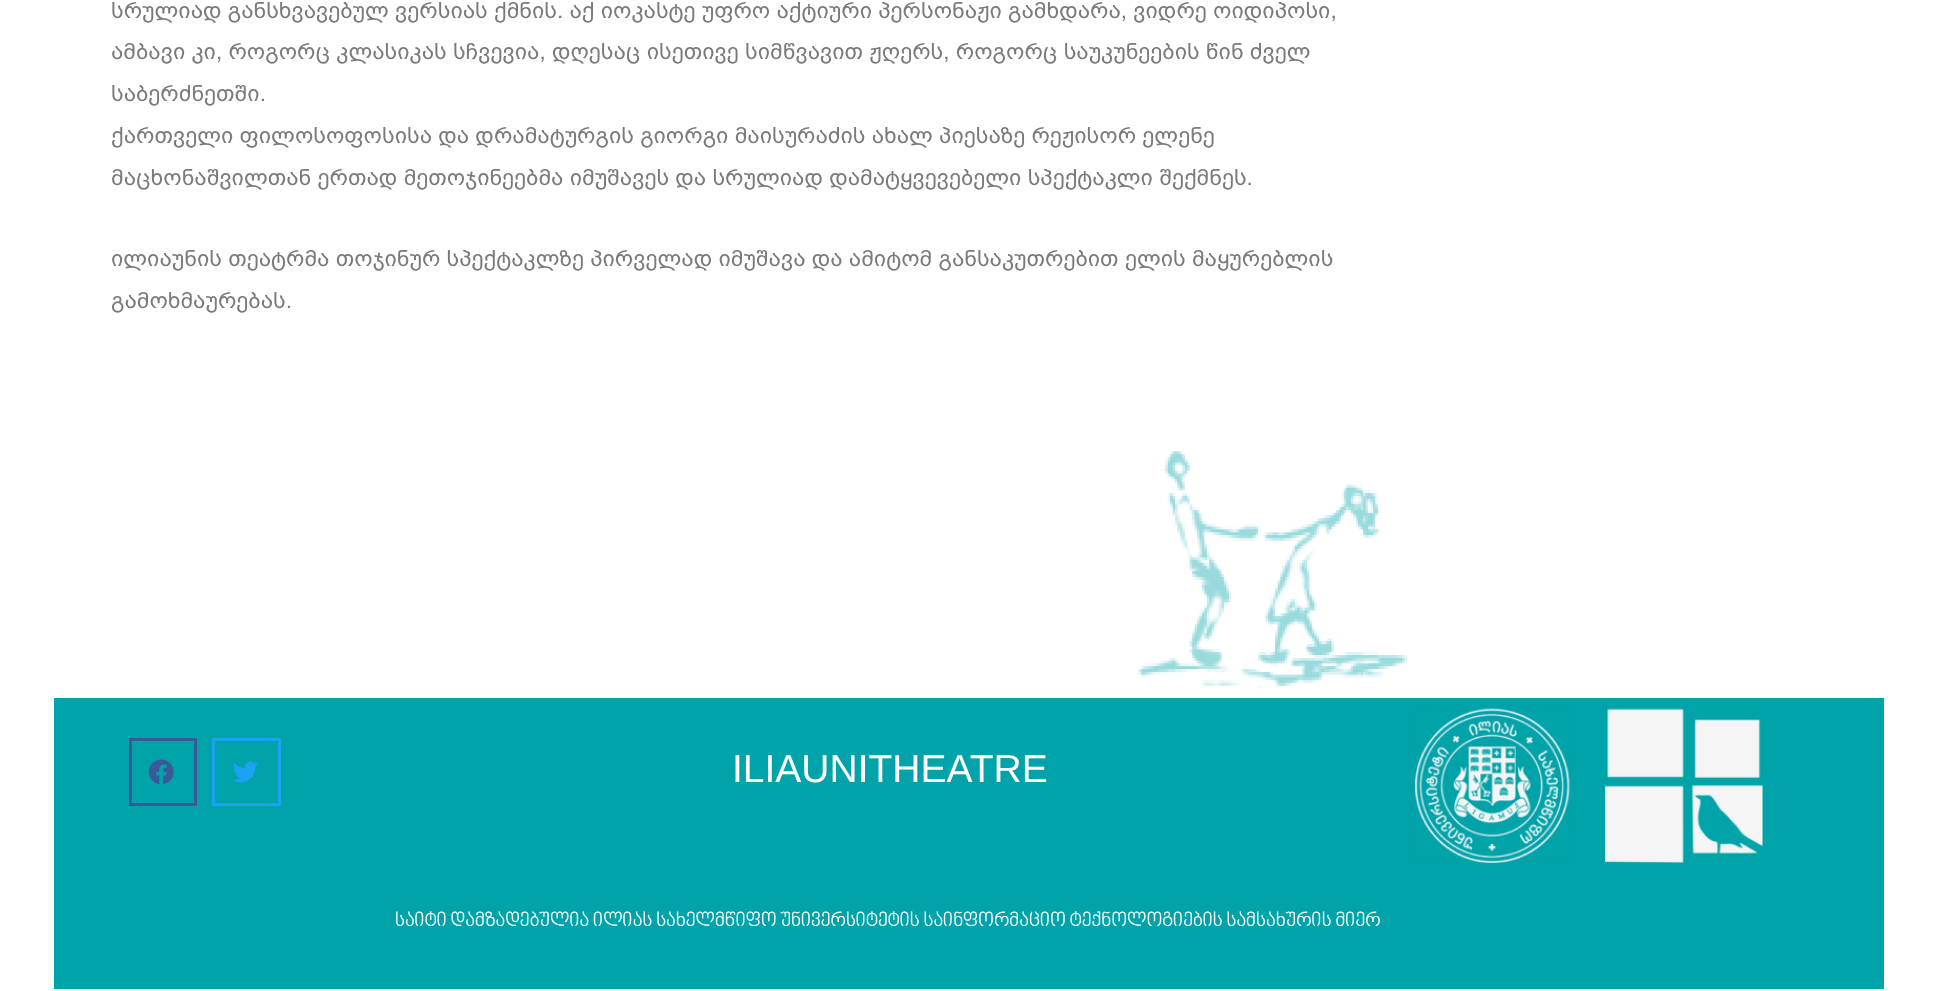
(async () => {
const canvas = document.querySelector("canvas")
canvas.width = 1936
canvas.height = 991
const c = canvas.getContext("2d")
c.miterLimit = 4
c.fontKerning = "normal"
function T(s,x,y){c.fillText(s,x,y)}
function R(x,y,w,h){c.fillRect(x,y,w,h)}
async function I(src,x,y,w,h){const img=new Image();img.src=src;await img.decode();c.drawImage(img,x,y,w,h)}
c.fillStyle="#fff"
R(0,0,1936,991)
c.font="22.5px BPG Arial"
c.fillStyle="#7a7a7a"
T("სრულიად განსხვავებულ ვერსიას ქმნის. აქ იოკასტე უფრო აქტიური პერსონაჟი გამხდარა, ვიდრე ოიდიპოსი,",111,18)
T("ამბავი კი, როგორც კლასიკას სჩვევია, დღესაც ისეთივე სიმწვავით ჟღერს, როგორც საუკუნეების წინ ძველ",111,59)
T("საბერძნეთში.",111,101)
T("ქართველი ფილოსოფოსისა და დრამატურგის გიორგი მაისურაძის ახალ პიესაზე რეჟისორ ელენე",111,143)
T("მაცხონაშვილთან ერთად მეთოჯინეებმა იმუშავეს და სრულიად დამატყვევებელი სპექტაკლი შექმნეს.",111,185)
T("ილიაუნის თეატრმა თოჯინურ სპექტაკლზე პირველად იმუშავა და ამიტომ განსაკუთრებით ელის მაყურებლის",111,266)
T("გამოხმაურებას.",111,308)
await I("1.png",1138,451,269,238)
c.fillStyle="#00a3a9"
R(54,698,1830,291)
c.strokeStyle="#3b5998"
c.lineWidth=3
c.strokeRect(130.5,739.5,65,65)
await I("2.png",148,759,26,25)
c.strokeStyle="#1da1f2"
c.strokeRect(213.5,739.5,66,65)
await I("3.png",233,761,25,22)
c.font="39px Liberation Sans"
c.fillStyle="#fff"
T("ILIAUNITHEATRE",732,782)
c.font="19.5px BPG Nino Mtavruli"
T("საიტი დამზადებულია ილიას სახელმწიფო უნივერსიტეტის საინფორმაციო ტექნოლოგიების სამსახურის მიერ",395,927)
await I("4.png",1414,708,156,156)
await I("5.png",1605,708,158,155)
})()
